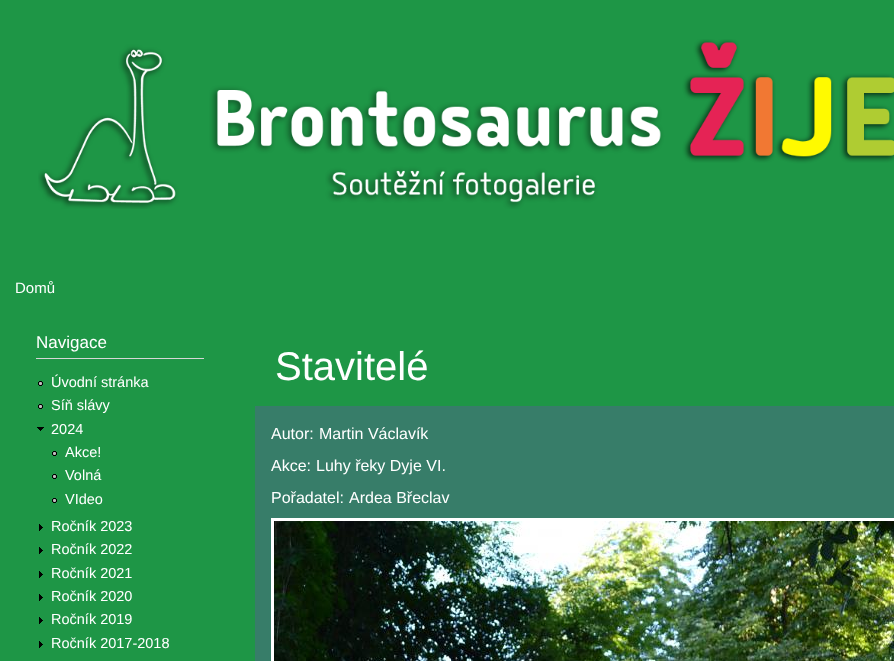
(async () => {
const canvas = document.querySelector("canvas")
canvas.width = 894
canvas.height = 661
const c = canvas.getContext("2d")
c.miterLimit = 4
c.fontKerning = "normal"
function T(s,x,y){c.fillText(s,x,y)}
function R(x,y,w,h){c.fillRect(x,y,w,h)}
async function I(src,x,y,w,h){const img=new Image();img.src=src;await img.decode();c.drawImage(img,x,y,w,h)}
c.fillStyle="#1e9646"
R(0,0,894,661)
await I("1.png",38,39,856,170)
c.font="15px Liberation Sans"
c.fillStyle="#fff"
T("Domů",15,293)
c.fillStyle="#d6d6d6"
R(36,358,168,1)
c.font="17px Liberation Sans"
c.fillStyle="#fff"
T("Navigace",36,348)
await I("2.png",38,381,5,5)
c.font="14.5px Liberation Sans"
T("Úvodní stránka",51,387)
await I("2.png",38,404,5,5)
T("Síň slávy",51,410)
await I("3.png",37,427,7,4)
T("2024",51,434)
await I("2.png",52,451,5,5)
T("Akce!",65,457)
await I("2.png",52,474,5,5)
T("Volná",65,480)
await I("2.png",52,498,5,5)
T("VIdeo",65,504)
await I("4.png",39,524,4,7)
T("Ročník 2023",51,531)
await I("4.png",39,547,4,7)
T("Ročník 2022",51,554)
await I("4.png",39,571,4,7)
T("Ročník 2021",51,578)
await I("4.png",39,594,4,7)
T("Ročník 2020",51,601)
await I("4.png",39,617,4,7)
T("Ročník 2019",51,624)
await I("4.png",39,641,4,7)
T("Ročník 2017-2018",51,648)
c.font="40px Liberation Sans"
T("Stavitelé",275,380)
c.fillStyle="#377d69"
R(255,406,639,255)
c.font="16px Liberation Sans"
c.fillStyle="#fff"
T("Autor:",271,439)
T("Martin Václavík",319,439)
T("Akce:",271,471)
T("Luhy řeky Dyje VI.",316,471)
T("Pořadatel:",271,503)
T("Ardea Břeclav",349,503)
c.strokeStyle="#fff"
c.lineWidth=3
c.strokeRect(272.5,519.5,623,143)
await I("5.png",274,521,620,140)
})()
